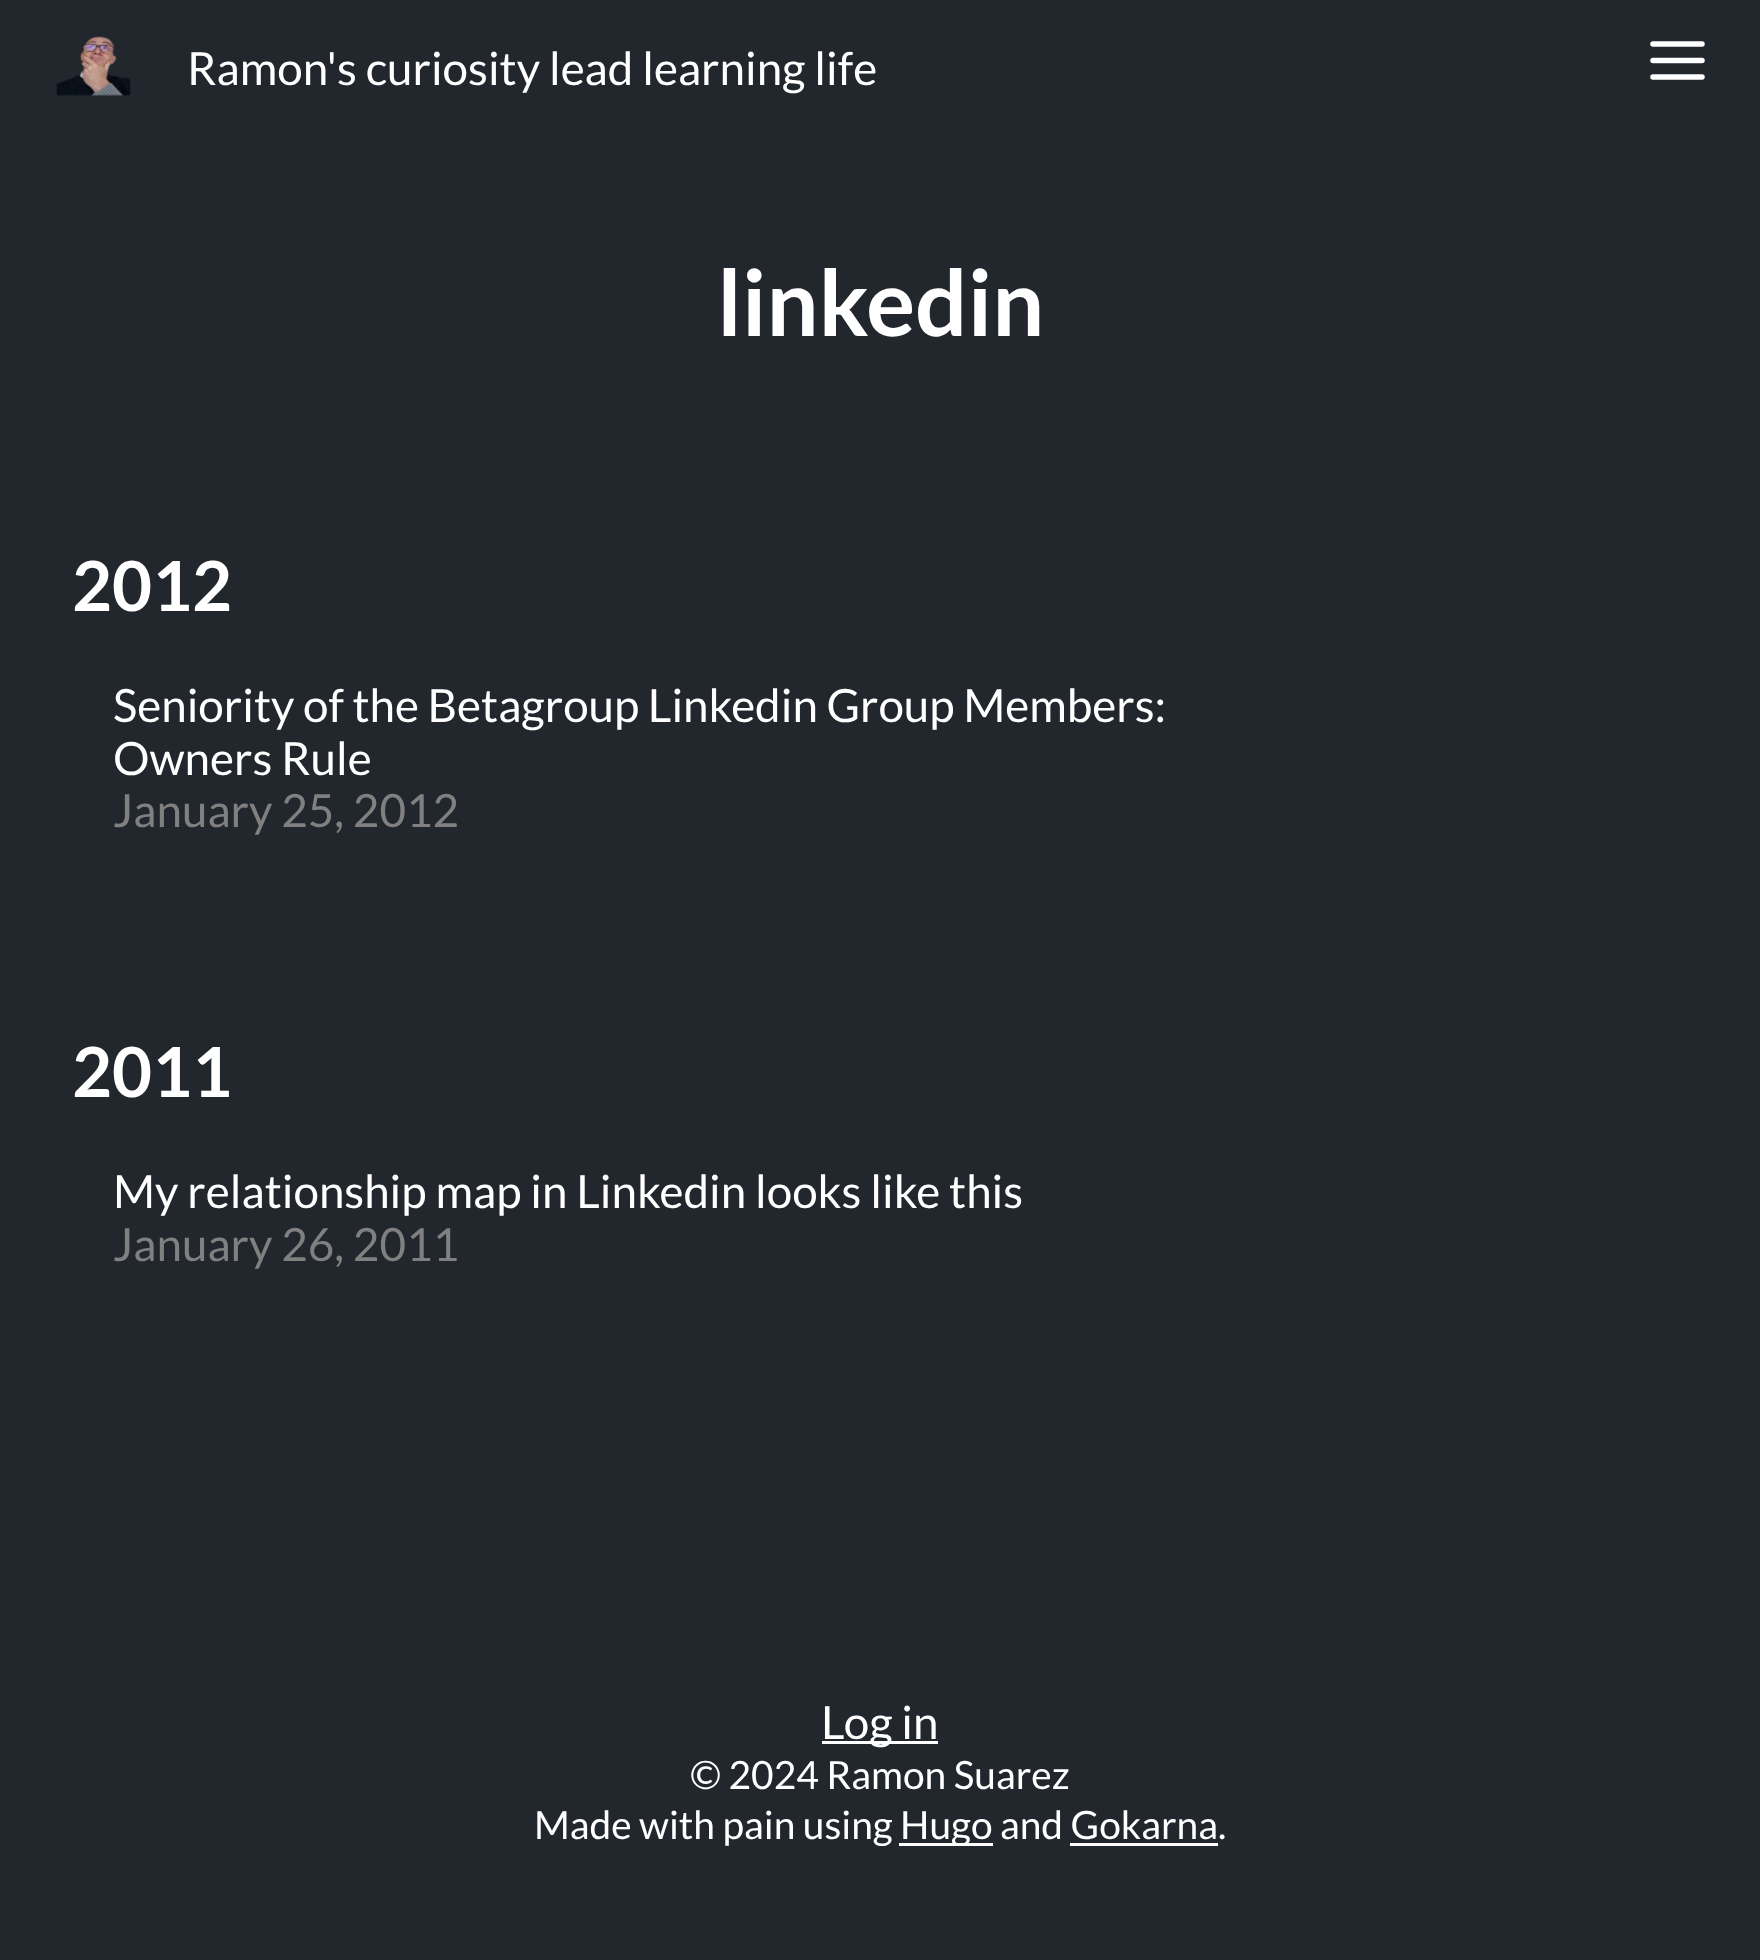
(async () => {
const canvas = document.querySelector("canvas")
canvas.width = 1760
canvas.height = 1960
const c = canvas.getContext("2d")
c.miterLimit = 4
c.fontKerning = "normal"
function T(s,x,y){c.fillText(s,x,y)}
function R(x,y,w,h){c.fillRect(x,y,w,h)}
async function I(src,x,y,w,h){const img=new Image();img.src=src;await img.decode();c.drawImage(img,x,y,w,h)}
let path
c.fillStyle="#22272e"
R(0,0,1760,1960)
await I("1.png",56,36,75,60)
c.font="45.75px Lato"
c.fillStyle="#fff"
T("Ramon's curiosity lead learning life",187,85)
path = new Path2D("M1653 60.5h49m-49-16.5h49m-49 33h49")
c.strokeStyle="#fff"
c.lineWidth=5.5
c.lineCap="round"
c.lineJoin="round"
c.stroke(path)
c.font="bold 91.5px Lato"
T("linkedin",717,336)
c.font="bold 69px Lato"
T("2012",72,611)
c.wordSpacing="-0.25px"
c.font="45.75px Lato"
T("Seniority of the Betagroup Linkedin Group Members:",113,722)
c.wordSpacing="0px"
T("Owners Rule",113,775)
c.fillStyle="#808080"
T("January 25, 2012",113,827)
c.font="bold 69px Lato"
c.fillStyle="#fff"
T("2011",72,1097)
c.font="45.75px Lato"
T("My relationship map in Linkedin looks like this",113,1208)
c.fillStyle="#808080"
T("January 26, 2011",113,1261)
c.fillStyle="#fff"
R(822,1741,116,3)
T("Log in",821,1739)
c.font="38.9px Lato"
T("© 2024 Ramon Suarez",690,1789)
T("Made with pain using",534,1839)
R(899,1843,94,3)
T("Hugo and Gokarna.",900,1839)
R(1070,1843,148,3)
})()
